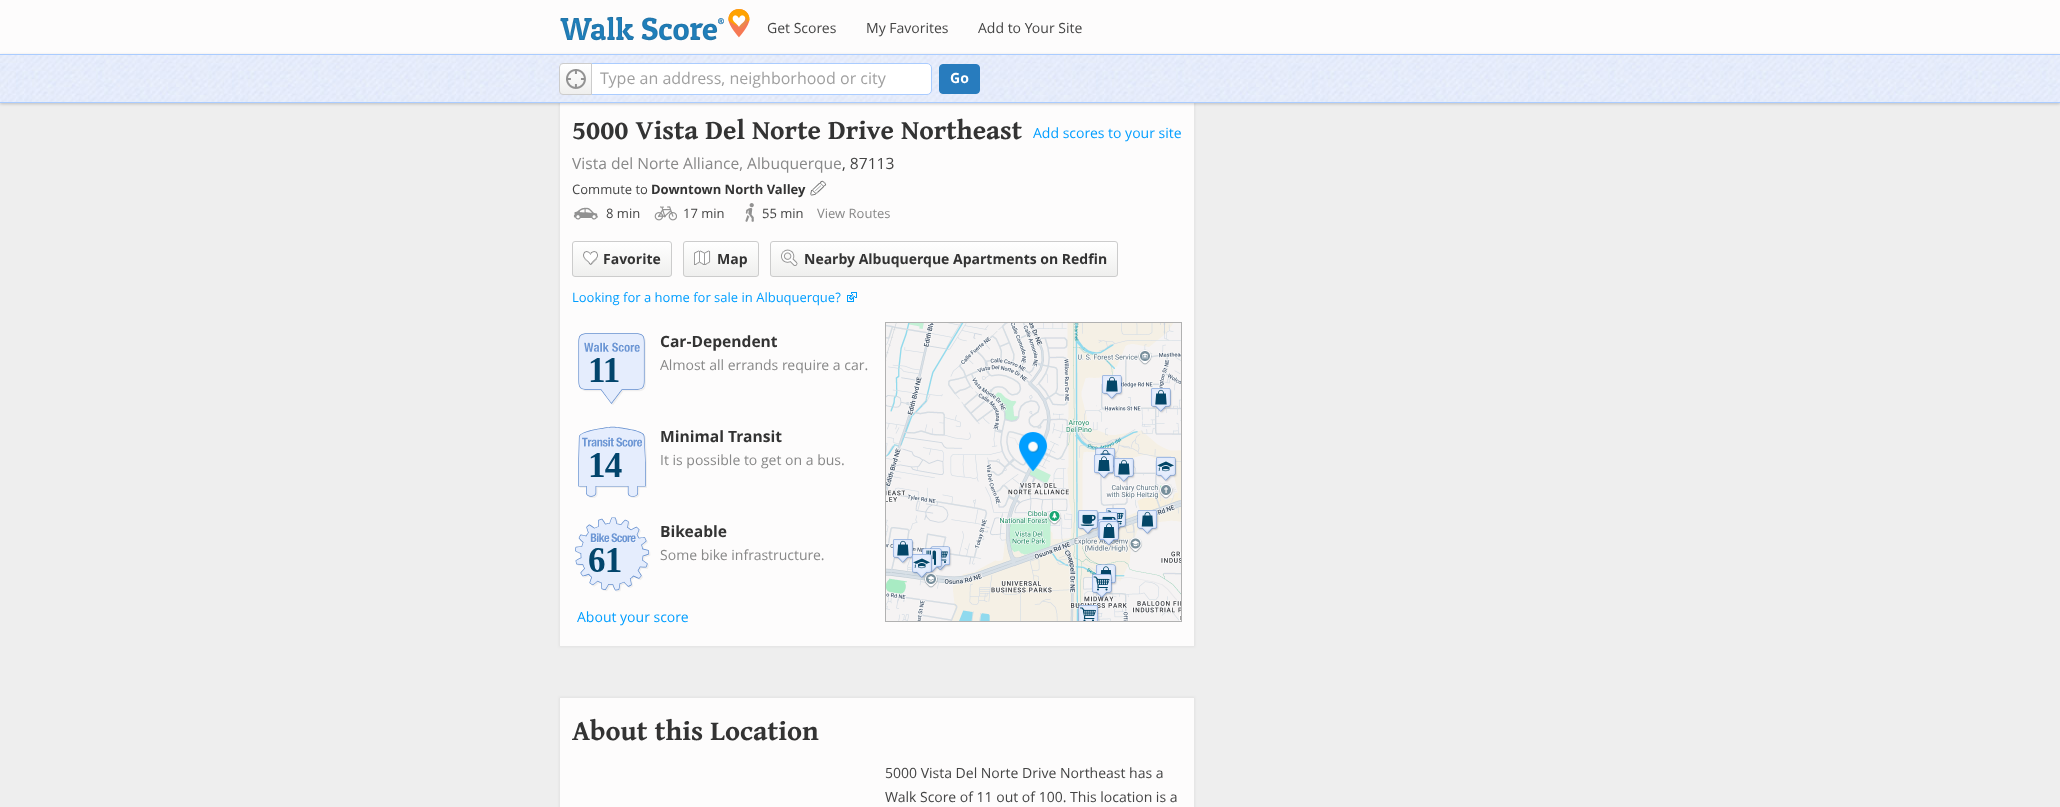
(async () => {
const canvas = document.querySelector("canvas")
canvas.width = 2060
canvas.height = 807
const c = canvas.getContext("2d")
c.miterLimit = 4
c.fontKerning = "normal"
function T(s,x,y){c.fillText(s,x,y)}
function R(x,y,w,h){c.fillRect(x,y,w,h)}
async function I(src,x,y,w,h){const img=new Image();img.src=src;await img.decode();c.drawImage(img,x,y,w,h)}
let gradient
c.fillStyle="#eee"
R(0,0,2060,807)
c.fillStyle="#fdfcfc"
R(0,0,2060,54)
await I("1.png",560,9,190,32)
c.font="14px Open Sans"
c.fillStyle="#444"
T("Get Scores",767,33)
T("My Favorites",866,33)
T("Add to Your Site",978,33)
c.fillStyle="#e2e2e2"
c.filter="blur(1px)"
c.beginPath()
c.rect(559,102,636,545)
c.fill()
c.filter="none"
c.fillStyle="#fdfcfc"
R(560,103,634,543)
c.fillStyle="#00000033"
c.filter="blur(1.5px)"
c.beginPath()
c.rect(0,55,2060,49)
c.fill()
c.filter="none"
await I("2.png",0,55,2060,47)
c.fillStyle="#acf"
R(0,54,2060,1)
R(0,102,2060,1)
c.save()
c.beginPath()
c.roundRect(559,63,33,32,[4,0,0,4])
c.clip()
gradient = c.createLinearGradient(576,64,576,94)
gradient.addColorStop(0,"#fff")
gradient.addColorStop(1,"#efefee")
c.fillStyle = gradient
R(559,64,32,30)
c.restore()
c.fillStyle="#fff"
c.beginPath()
c.roundRect(591.5,63.5,340,31,[0,4.5,4.5,0])
c.fill()
c.strokeStyle="#acf"
c.stroke()
c.beginPath()
c.roundRect(559.5,63.5,32,31,[3.5,0,0,3.5])
c.strokeStyle="#ccc"
c.stroke()
await I("3.png",566,69,20,20)
c.font="16px Open Sans"
c.fillStyle="#a0a0a0"
T("Type an address, neighborhood or city",600,84)
c.fillStyle="#287cbe"
c.beginPath()
c.roundRect(939.5,64.5,40,29,3.5)
c.fill()
c.strokeStyle="#287cbe"
c.stroke()
c.font="bold 14px Open Sans"
c.fillStyle="#fff"
T("Go",950,83)
c.font="bold 27.25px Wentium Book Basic"
c.fillStyle="#333"
T("5000 Vista Del Norte Drive Northeast",572,139)
c.font="15.6px Open Sans"
c.fillStyle="#888"
T("Vista del Norte Alliance, Albuquerque",572,169)
c.fillStyle="#444"
T(", 87113",842,169)
c.font="14px Open Sans"
c.fillStyle="#009eff"
T("Add scores to your site",1033,138)
c.font="13px Open Sans"
c.fillStyle="#444"
T("Commute to",572,194)
c.font="bold 13px Open Sans"
c.fillStyle="#333"
T("Downtown North Valley",651,194)
await I("4.png",810,180,17,16)
await I("5.png",573,207,25,13)
c.font="13px Open Sans"
c.fillStyle="#444"
T("8 min",606,218)
await I("6.png",654,206,23,15)
T("17 min",683,218)
await I("7.png",745,203,9,19)
T("55 min",762,218)
c.fillStyle="#888"
T("View Routes",817,218)
c.save()
c.beginPath()
c.roundRect(572,241,100,36,3)
c.clip()
gradient = c.createLinearGradient(622,242,622,276)
gradient.addColorStop(0,"#fff")
gradient.addColorStop(1,"#efefee")
c.fillStyle = gradient
R(572,242,100,34)
c.restore()
c.beginPath()
c.roundRect(572.5,241.5,99,35,2.5)
c.strokeStyle="#ccc"
c.stroke()
await I("8.png",583,251,15,14)
c.font="bold 14px Open Sans"
c.fillStyle="#333"
T("Favorite",603,264)
c.save()
c.beginPath()
c.roundRect(683,241,76,36,3)
c.clip()
gradient = c.createLinearGradient(721,242,721,276)
gradient.addColorStop(0,"#fff")
gradient.addColorStop(1,"#efefee")
c.fillStyle = gradient
R(683,242,76,34)
c.restore()
c.beginPath()
c.roundRect(683.5,241.5,75,35,2.5)
c.stroke()
await I("9.png",694,250,17,15)
T("Map",717,264)
c.save()
c.beginPath()
c.roundRect(770,241,348,36,3)
c.clip()
gradient = c.createLinearGradient(944,242,944,276)
gradient.addColorStop(0,"#fff")
gradient.addColorStop(1,"#efefee")
c.fillStyle = gradient
R(770,242,348,34)
c.restore()
c.beginPath()
c.roundRect(770.5,241.5,347,35,2.5)
c.stroke()
await I("10.png",781,249,17,17)
T("Nearby Albuquerque Apartments on Redfin",804,264)
c.font="13px Open Sans"
c.fillStyle="#009eff"
T("Looking for a home for sale in Albuquerque?",572,302)
await I("11.png",847,292,10,10)
await I("12.png",578,333,68,72)
c.font="bold 15.6px Open Sans"
c.fillStyle="#333"
T("Car-Dependent",660,347)
c.font="14px Open Sans"
c.fillStyle="#888"
T("Almost all errands require a car.",660,370)
await I("13.png",578,426,69,72)
c.font="bold 15.6px Open Sans"
c.fillStyle="#333"
T("Minimal Transit",660,442)
c.font="14px Open Sans"
c.fillStyle="#888"
T("It is possible to get on a bus.",660,465)
await I("14.png",575,517,76,75)
c.font="bold 15.6px Open Sans"
c.fillStyle="#333"
T("Bikeable",660,537)
c.font="14px Open Sans"
c.fillStyle="#888"
T("Some bike infrastructure.",660,560)
c.fillStyle="#009eff"
T("About your score",577,622)
c.strokeStyle="#b1b1b1"
c.strokeRect(885.5,322.5,296,299)
await I("15.png",886,323,295,298)
await I("16.png",1019,432,29,40)
c.fillStyle="#e2e2e2"
c.filter="blur(1px)"
c.beginPath()
c.rect(559,697,636,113)
c.fill()
c.filter="none"
c.fillStyle="#fdfcfc"
R(560,698,634,109)
c.font="bold 28.25px Wentium Book Basic"
c.fillStyle="#333"
T("About this Location",572,740)
c.font="14px Open Sans"
c.fillStyle="#444"
T("5000 Vista Del Norte Drive Northeast has a",885,778)
T("Walk Score of 11 out of 100. This location is a",885,802)
})()
